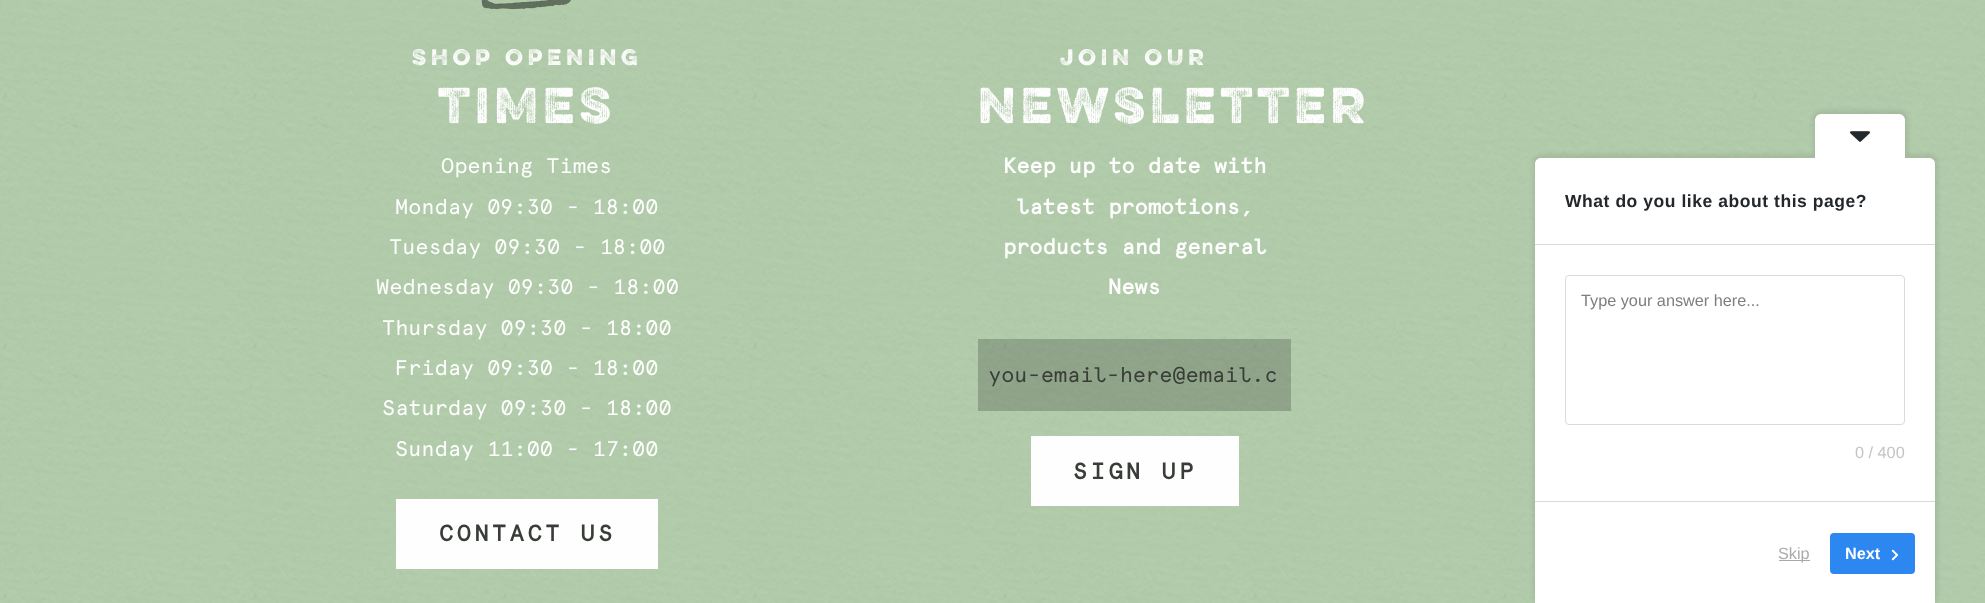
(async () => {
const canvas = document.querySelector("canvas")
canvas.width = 1985
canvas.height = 603
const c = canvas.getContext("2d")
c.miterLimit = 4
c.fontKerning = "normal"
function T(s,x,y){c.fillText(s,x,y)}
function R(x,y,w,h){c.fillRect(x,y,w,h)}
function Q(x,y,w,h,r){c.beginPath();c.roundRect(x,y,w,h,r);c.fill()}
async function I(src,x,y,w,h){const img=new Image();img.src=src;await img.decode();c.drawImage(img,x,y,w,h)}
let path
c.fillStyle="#fff"
R(0,0,1985,603)
await I("1.png",0,0,1985,603)
await I("2.png",481,0,90,19)
c.letterSpacing="5px"
c.font="300 20px 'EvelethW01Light'"
c.fillStyle="#fefefe"
T("SHOP OPENING",412,65)
c.font="300 45px 'EvelethW01Light'"
T("TIMES",438,123)
c.letterSpacing="0px"
c.font="21.25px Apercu"
T("Opening Times",441,173)
T("Monday 09:30 - 18:00",395,214)
T("Tuesday 09:30 - 18:00",389,254)
T("Wednesday 09:30 - 18:00",376,294)
T("Thursday 09:30 - 18:00",382,335)
T("Friday 09:30 - 18:00",395,375)
T("Saturday 09:30 - 18:00",382,415)
T("Sunday 11:00 - 17:00",395,456)
R(396,499,262,70)
c.letterSpacing="3.75px"
c.font="bold 22.5px Apercu"
c.fillStyle="#383e37"
T("CONTACT US",439,541)
c.letterSpacing="5px"
c.font="300 20px 'EvelethW01Light'"
c.fillStyle="#fefefe"
T("JOIN OUR",1060,65)
c.font="300 45px 'EvelethW01Light'"
T("NEWSLETTER",978,123)
c.letterSpacing="0px"
c.font="bold 21.25px Apercu"
T("Keep up to date with",1003,173)
T("latest promotions,",1016,214)
T("products and general",1003,254)
T("News",1108,294)
c.fillStyle="#0a0a0a33"
R(978,339,313,72)
c.font="21.25px Apercu"
c.fillStyle="#383e37"
T("you-email-here@email.c",988,382)
c.fillStyle="#fefefe"
R(1031,436,208,70)
c.letterSpacing="3.75px"
c.font="bold 22.5px Apercu"
c.fillStyle="#383e37"
T("SIGN UP",1073,479)
c.fillStyle="#00000012"
c.filter="blur(2px)"
c.beginPath()
c.roundRect(1533,154,405,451,9)
c.fill()
c.filter="none"
c.fillStyle="#fff"
path = new Path2D("M1541 158h388c3.5 0 6 2.5 6 6v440h-400v-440c0-3.5 2.5-6 6-6z")
c.fill(path)
c.save()
path = new Path2D("M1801.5 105.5h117l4.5 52.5h-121.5z")
c.clip(path)
c.fillStyle="#00000012"
c.filter="blur(2px)"
c.beginPath()
c.roundRect(1813,110,95,49,9)
c.fill()
c.filter="none"
c.restore()
c.beginPath()
c.roundRect(1815,114,90,44,[6,6,0,0])
c.fill()
await I("3.png",1850,131,20,11)
c.letterSpacing="0.55px"
c.font="bold 17.5px Liberation Sans"
c.fillStyle="#23282d"
T("What do you like about this page?",1565,207)
c.fillStyle="#d9d9d9"
R(1535,244,400,1)
R(1535,501,400,1)
c.beginPath()
c.roundRect(1565.5,275.5,339,149,3.5)
c.strokeStyle="#dadada"
c.stroke()
c.letterSpacing="0px"
c.font="16.25px Liberation Sans"
c.fillStyle="#7e7e7e"
T("Type your answer here...",1581,306)
c.fillStyle="#c4c4c4"
T("0 / 400",1855,458)
c.fillStyle="#aaa"
R(1779,560,31,1)
T("Skip",1778,559)
c.fillStyle="#2d87f1"
Q(1830,533,85,41,4)
c.font="bold 16.25px Liberation Sans"
c.fillStyle="#fefefe"
T("Next",1845,559)
await I("4.png",1891,549,8,12)
})()
